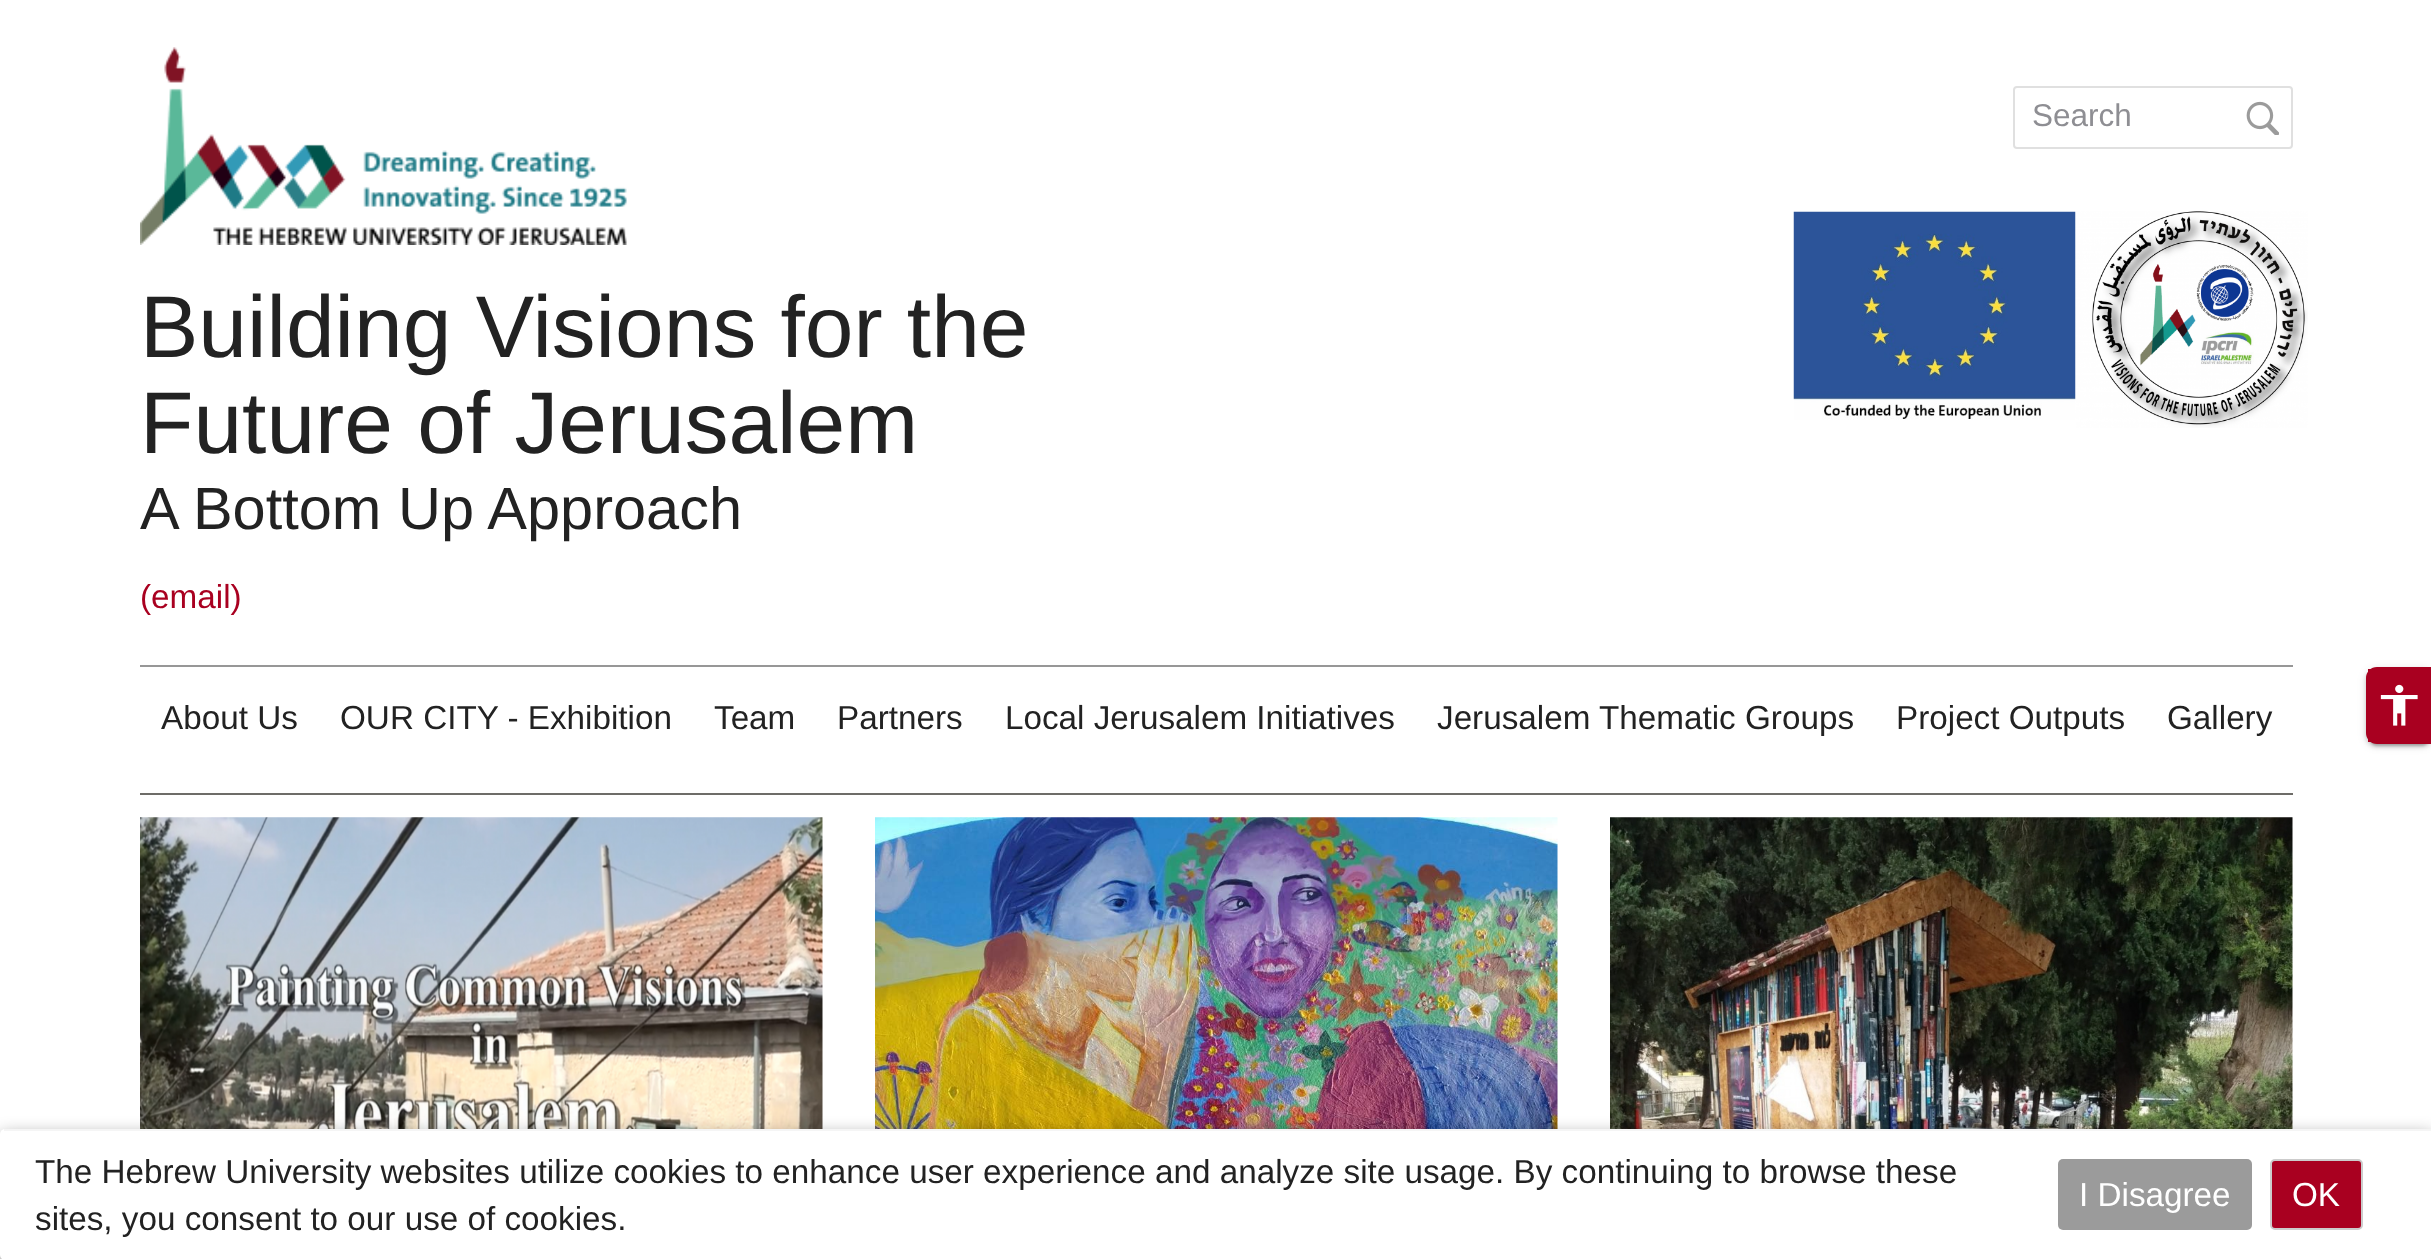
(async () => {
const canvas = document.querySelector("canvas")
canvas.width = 2431
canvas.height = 1259
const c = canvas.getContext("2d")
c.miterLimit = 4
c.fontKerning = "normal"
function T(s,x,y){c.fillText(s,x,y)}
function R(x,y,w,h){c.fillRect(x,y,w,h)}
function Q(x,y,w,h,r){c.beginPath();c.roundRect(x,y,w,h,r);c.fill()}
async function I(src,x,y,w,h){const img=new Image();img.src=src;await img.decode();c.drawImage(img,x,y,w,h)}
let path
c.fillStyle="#fff"
R(0,0,2431,1259)
c.beginPath()
c.roundRect(2014,87,278,61,3)
c.strokeStyle="#e0e0e0"
c.lineWidth=2
c.stroke()
c.font="31.5px Liberation Sans"
c.fillStyle="#8e8e93"
T("Search",2032,126)
await I("1.png",2246,101,33,34)
await I("2.png",1793,211,283,209)
await I("3.png",2075,211,233,217)
await I("4.png",140,47,487,198)
c.font="87.5px Liberation Sans"
c.fillStyle="#222"
T("Building Visions for the",140,357)
T("Future of Jerusalem",140,453)
c.font="59.5px Liberation Sans"
T("A Bottom Up Approach",140,529)
c.font="33.25px Liberation Sans"
c.fillStyle="#a90020"
T("(email)",140,608)
c.fillStyle="#979797"
R(140,665,2153,2)
c.fillStyle="#00000033"
c.filter="blur(1px)"
c.beginPath()
c.roundRect(2370,676,59,70,7)
c.fill()
c.filter="none"
c.fillStyle="#0000001f"
c.filter="blur(4.5px)"
c.beginPath()
c.roundRect(2366,669,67,77,11)
c.fill()
c.filter="none"
c.fillStyle="#00000024"
c.filter="blur(2px)"
c.beginPath()
c.roundRect(2366,670,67,77,11)
c.fill()
c.filter="none"
path = new Path2D("M2377 668h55v75h-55c-5.5 0-10-4.5-10-10v-55c0-5.5 4.5-10 10-10z")
c.strokeStyle="#a90020"
c.stroke(path)
c.fillStyle="#a90020"
R(2368,669,63,73)
await I("5.png",2380,684,38,42)
c.fillStyle="#222"
T("About Us",161,729)
T("OUR CITY - Exhibition",340,729)
T("Team",714,729)
T("Partners",837,729)
T("Local Jerusalem Initiatives",1005,729)
T("Jerusalem Thematic Groups",1437,729)
T("Project Outputs",1896,729)
T("Gallery",2167,729)
c.fillStyle="#6d6c68"
R(140,793,2153,2)
await I("6.png",140,817,683,312)
await I("7.png",875,817,683,312)
await I("8.png",1610,817,683,312)
c.fillStyle="#0000007a"
c.filter="blur(9px)"
c.beginPath()
c.roundRect(0,1136,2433,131,5)
c.fill()
c.filter="none"
c.fillStyle="#fff"
Q(0,1129,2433,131,5)
c.fillStyle="#f5f5f5"
R(4,1129,2427,2)
c.fillStyle="#222"
T("The Hebrew University websites utilize cookies to enhance user experience and analyze site usage. By continuing to browse these",35,1183)
T("sites, you consent to our use of cookies.",35,1230)
c.fillStyle="#9b9b9b"
Q(2058,1159,194,71,5)
c.fillStyle="#fff"
T("I Disagree",2079,1206)
c.fillStyle="#a90020"
c.beginPath()
c.roundRect(2271,1160,91,69,4)
c.fill()
c.strokeStyle="#ccc"
c.stroke()
c.fillStyle="#fff"
T("OK",2292,1206)
})()
